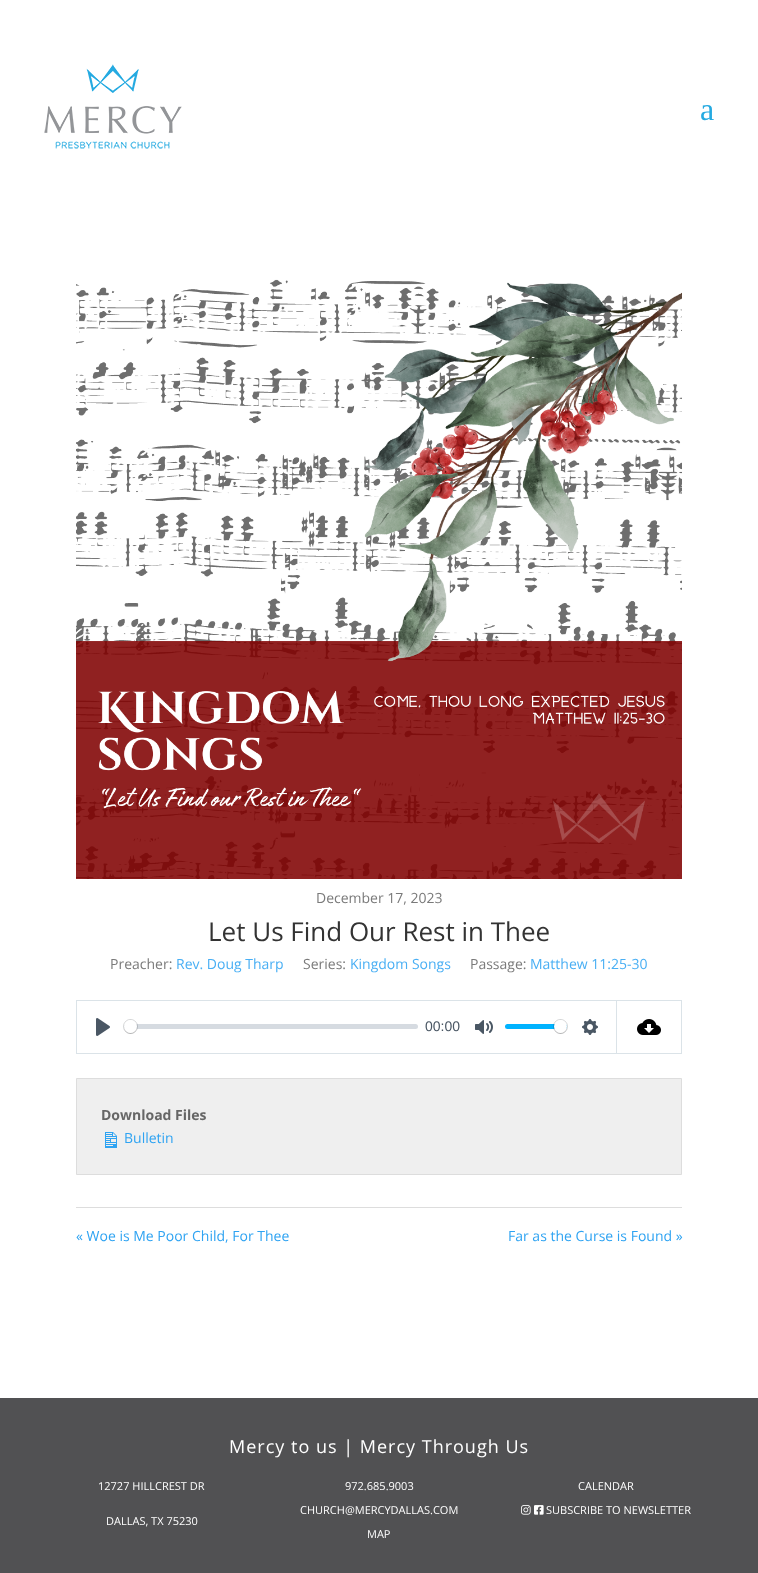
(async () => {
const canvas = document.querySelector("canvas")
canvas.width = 758
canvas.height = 1573
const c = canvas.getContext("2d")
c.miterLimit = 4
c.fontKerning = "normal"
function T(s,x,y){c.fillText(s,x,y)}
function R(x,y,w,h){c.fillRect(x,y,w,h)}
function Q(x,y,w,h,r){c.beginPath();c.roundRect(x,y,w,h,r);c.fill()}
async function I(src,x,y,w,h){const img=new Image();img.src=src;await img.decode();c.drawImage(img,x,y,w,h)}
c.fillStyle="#fff"
R(0,0,758,1573)
await I("1.png",44,64,138,85)
c.font="32px Liberation Serif"
c.fillStyle="#25aae1"
T("a",700,120)
await I("2.png",76,279,606,600)
c.font="14px Open Sans"
c.fillStyle="#7a7a7a"
T("December 17, 2023",316,903)
c.font="26px Open Sans"
c.fillStyle="#333"
T("Let Us Find Our Rest in Thee",208,941)
c.font="14px Open Sans"
c.fillStyle="#7a7a7a"
T("Preacher:",110,969)
c.fillStyle="#49aff4"
T("Rev. Doug Tharp",176,969)
c.fillStyle="#7a7a7a"
T("Series:",303,969)
c.fillStyle="#49aff4"
T("Kingdom Songs",350,969)
c.fillStyle="#7a7a7a"
T("Passage:",470,969)
c.fillStyle="#49aff4"
T("Matthew 11:25-30",530,969)
c.strokeStyle="#dbe3e8"
c.strokeRect(76.5,1000.5,540,53)
await I("3.png",96,1018,14,18)
c.fillStyle="#c1c9d1a8"
Q(124,1024,294,5,2.5)
c.beginPath()
c.arc(130.5,1026.5,7,0,7)
c.strokeStyle="#23292f33"
c.stroke()
c.fillStyle="#00000026"
c.filter="blur(0.5px)"
c.beginPath()
c.roundRect(124,1021,13,13,6.5)
c.fill()
c.filter="none"
c.fillStyle="#fff"
c.beginPath()
c.arc(130.5,1026.5,6.5,0,7)
c.fill()
c.font="14px Liberation Sans"
c.fillStyle="#4a5764"
T("00:00",425,1031)
await I("4.png",475,1020,18,14)
c.fillStyle="#00b3ff"
Q(505,1024,62,5,2.5)
c.beginPath()
c.arc(560.5,1026.5,7,0,7)
c.stroke()
c.fillStyle="#00000026"
c.filter="blur(0.5px)"
c.beginPath()
c.roundRect(554,1021,13,13,6.5)
c.fill()
c.filter="none"
c.fillStyle="#fff"
c.beginPath()
c.arc(560.5,1026.5,6.5,0,7)
c.fill()
await I("5.png",582,1019,16,16)
c.fillStyle="#dbe3e8"
R(617,1000,65,1)
R(681,1000,1,54)
R(617,1053,65,1)
await I("6.png",637,1019,24,16)
c.fillStyle="#efefef"
c.beginPath()
c.rect(76.5,1078.5,605,96)
c.fill()
c.strokeStyle="#ddd"
c.stroke()
c.font="bold 14px Open Sans"
c.fillStyle="#666"
T("Download Files",101,1120)
await I("7.png",105,1132,12,16)
c.font="14px Open Sans"
c.fillStyle="#2ea3f2"
T("Bulletin",124,1143)
c.fillStyle="#ddd"
R(76,1207,606,1)
c.fillStyle="#2ea3f2"
T("« Woe is Me Poor Child, For Thee",76,1241)
T("Far as the Curse is Found »",508,1241)
c.fillStyle="#515153"
R(0,1398,758,175)
c.letterSpacing="1px"
c.font="18px Open Sans"
c.fillStyle="#fff"
T("Mercy to us | Mercy Through Us",229,1453)
c.letterSpacing="0px"
c.font="11px Open Sans"
T("12727 HILLCREST DR",98,1490)
T("DALLAS, TX 75230",106,1525)
T("972.685.9003",345,1490)
T("CHURCH@MERCYDALLAS.COM",300,1514)
T("MAP",367,1538)
T("CALENDAR",578,1490)
await I("8.png",521,1505,10,10)
await I("9.png",534,1505,10,10)
T("SUBSCRIBE TO NEWSLETTER",546,1514)
})()
